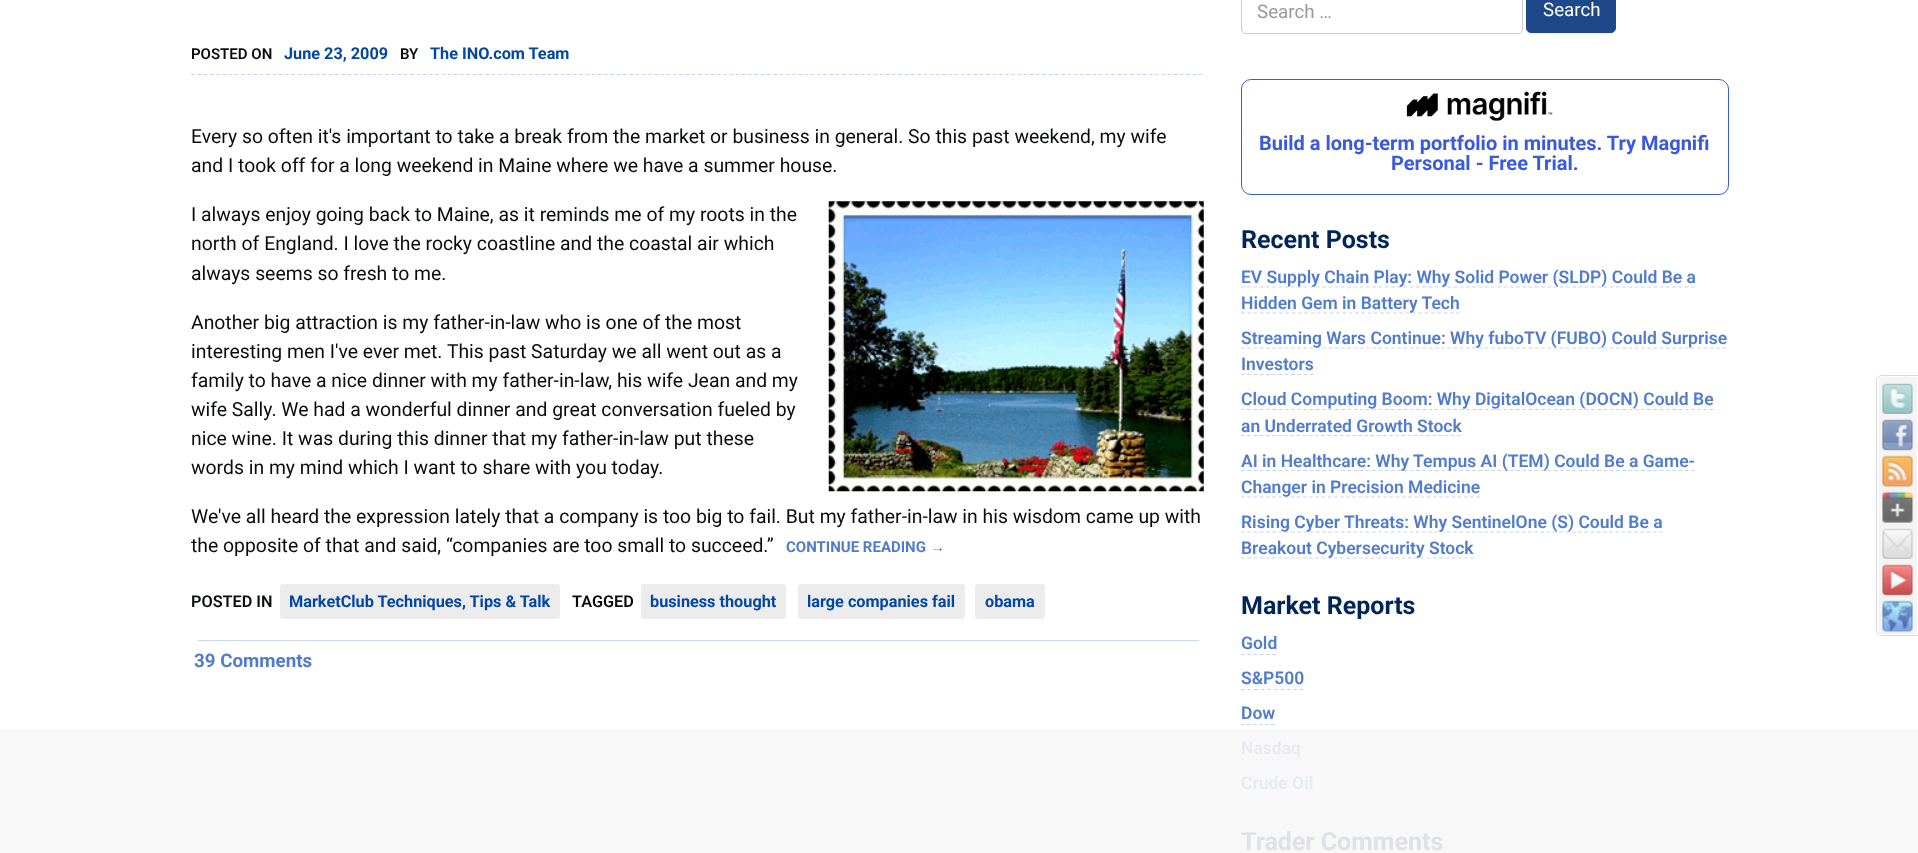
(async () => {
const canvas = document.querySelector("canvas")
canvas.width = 1918
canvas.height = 853
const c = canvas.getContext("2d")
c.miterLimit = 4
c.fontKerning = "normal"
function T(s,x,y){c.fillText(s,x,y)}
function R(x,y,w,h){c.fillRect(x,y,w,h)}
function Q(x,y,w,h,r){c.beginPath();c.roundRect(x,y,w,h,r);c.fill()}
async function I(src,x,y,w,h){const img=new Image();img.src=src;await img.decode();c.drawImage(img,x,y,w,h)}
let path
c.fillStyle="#fff"
R(0,0,1918,853)
c.fillStyle="#f8f8f8"
R(0,729,1918,124)
path = new Path2D("M191 74.5h1013")
c.strokeStyle="#c8d5ef"
c.lineWidth=1.2
c.setLineDash([3.75,2.51])
c.stroke(path)
c.font="600 15px Roboto"
c.fillStyle="#0a0c0d"
T("POSTED ON",191,59)
c.font="bold 16.25px Roboto"
c.fillStyle="#0246a6"
T("June 23, 2009",284,59)
c.font="600 15px Roboto"
c.fillStyle="#0a0c0d"
T("BY",400,59)
c.font="bold 16.25px Roboto"
c.fillStyle="#0246a6"
T("The INO.com Team",430,59)
c.font="19.38px Roboto"
c.fillStyle="#0a0c0d"
T("Every so often it's important to take a break from the market or business in general. So this past weekend, my wife",191,143)
T("and I took off for a long weekend in Maine where we have a summer house.",191,172)
T("I always enjoy going back to Maine, as it reminds me of my roots in the",191,221)
await I("1.png",828,201,376,291)
T("north of England. I love the rocky coastline and the coastal air which",191,250)
T("always seems so fresh to me.",191,280)
T("Another big attraction is my father-in-law who is one of the most",191,329)
T("interesting men I've ever met. This past Saturday we all went out as a",191,358)
T("family to have a nice dinner with my father-in-law, his wife Jean and my",191,387)
T("wife Sally. We had a wonderful dinner and great conversation fueled by",191,416)
T("nice wine. It was during this dinner that my father-in-law put these",191,445)
T("words in my mind which I want to share with you today.",191,474)
T("We've all heard the expression lately that a company is too big to fail. But my father-in-law in his wisdom came up with",191,523)
T("the opposite of that and said, “companies are too small to succeed.”",191,552)
c.font="bold 15px Roboto"
c.fillStyle="#517bcd"
T("CONTINUE READING",786,552)
c.font="bold 15px Liberation Sans"
T("→",930,552)
c.font="600 16.25px Roboto"
c.fillStyle="#0a0c0d"
T("POSTED IN",191,607)
c.fillStyle="#edecec"
Q(280,584,280,35,3)
c.font="bold 16.25px Roboto"
c.fillStyle="#0246a6"
T("MarketClub Techniques, Tips & Talk",289,607)
c.font="600 16.25px Roboto"
c.fillStyle="#0a0c0d"
T("TAGGED",572,607)
c.fillStyle="#edecec"
Q(641,584,145,35,3)
c.font="bold 16.25px Roboto"
c.fillStyle="#0246a6"
T("business thought",650,607)
c.fillStyle="#edecec"
Q(798,584,167,35,3)
c.fillStyle="#0246a6"
T("large companies fail",807,607)
c.fillStyle="#edecec"
Q(975,584,70,35,3)
c.fillStyle="#0246a6"
T("obama",985,607)
c.fillStyle="#c8d5ef"
R(198,640,1001,1)
c.font="bold 18.75px Roboto"
c.fillStyle="#517bcd"
T("39 Comments",194,667)
c.beginPath()
c.roundRect(1241.5,-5.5,281,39,4.5)
c.strokeStyle="#ccc"
c.lineWidth=1
c.setLineDash([])
c.stroke()
c.font="18.75px Roboto"
c.fillStyle="#999"
T("Search …",1257,18)
c.fillStyle="#00000012"
c.filter="blur(0.5px)"
c.beginPath()
c.roundRect(1526,-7,90,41,5)
c.fill()
c.filter="none"
c.fillStyle="#1f488a"
c.beginPath()
c.roundRect(1526.5,-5.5,89,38,4.5)
c.fill()
c.strokeStyle="#1f488a"
c.stroke()
c.fillStyle="#fff"
T("Search",1543,16)
c.beginPath()
c.roundRect(1241.5,79.5,487,115,9.5)
c.strokeStyle="#3959de"
c.stroke()
await I("2.png",1406,91,147,30)
c.font="bold 20px Roboto"
c.fillStyle="#3959de"
T("Build a long-term portfolio in minutes. Try Magnifi",1259,150)
T("Personal - Free Trial.",1391,170)
c.font="bold 25px Roboto"
c.fillStyle="#012558"
T("Recent Posts",1241,248)
path = new Path2D("M1241 287h454")
c.strokeStyle="#c8d5ef"
c.lineWidth=1.2
c.setLineDash([3.75,2.5])
c.stroke(path)
c.font="600 17.5px Roboto"
c.fillStyle="#517bcd"
T("EV Supply Chain Play: Why Solid Power (SLDP) Could Be a",1241,283)
path = new Path2D("M1241 313h219")
c.setLineDash([3.75,2.58])
c.stroke(path)
T("Hidden Gem in Battery Tech",1241,309)
path = new Path2D("M1241 348h485")
c.setLineDash([3.75,2.5])
c.stroke(path)
T("Streaming Wars Continue: Why fuboTV (FUBO) Could Surprise",1241,344)
T("Investors",1241,370)
path = new Path2D("M1241 374.5h73")
c.stroke(path)
path = new Path2D("M1241 409.5h473")
c.stroke(path)
T("Cloud Computing Boom: Why DigitalOcean (DOCN) Could Be",1241,405)
T("an Underrated Growth Stock",1241,432)
path = new Path2D("M1241 435.5h220")
c.setLineDash([3.75,2.42])
c.stroke(path)
path = new Path2D("M1241 470.5h454")
c.setLineDash([3.75,2.5])
c.stroke(path)
T("AI in Healthcare: Why Tempus AI (TEM) Could Be a Game-",1241,467)
path = new Path2D("M1241 497h239")
c.setLineDash([3.75,2.44])
c.stroke(path)
T("Changer in Precision Medicine",1241,493)
path = new Path2D("M1241 532h421.5")
c.setLineDash([3.75,2.49])
c.stroke(path)
T("Rising Cyber Threats: Why SentinelOne (S) Could Be a",1241,528)
path = new Path2D("M1241 558h233")
c.setLineDash([3.75,2.44])
c.stroke(path)
T("Breakout Cybersecurity Stock",1241,554)
c.font="bold 25px Roboto"
c.fillStyle="#012558"
T("Market Reports",1241,614)
c.font="600 17.5px Roboto"
c.fillStyle="#517bcd"
T("Gold",1241,649)
path = new Path2D("M1241 654.5h35")
c.setLineDash([3.75,2.5])
c.stroke(path)
T("S&P500",1241,684)
path = new Path2D("M1241 689.5h63")
c.setLineDash([3.75,2.78])
c.stroke(path)
T("Dow",1241,719)
path = new Path2D("M1241 724.5h34")
c.setLineDash([3.75,2.25])
c.stroke(path)
c.fillStyle="#e6ebf3"
T("Nasdaq",1241,754)
path = new Path2D("M1241 759.5h59")
c.strokeStyle="#f2f4f6"
c.setLineDash([3.75,2.36])
c.stroke(path)
T("Crude Oil",1241,789)
path = new Path2D("M1241 794.5h71.5")
c.setLineDash([3.75,2.39])
c.stroke(path)
c.font="bold 25px Roboto"
c.fillStyle="#dee2e7"
T("Trader Comments",1241,850)
path = new Path2D("M1882 375.5h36.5v260h-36.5c-3 0-5.5-2.5-5.5-5.5v-249c0-3 2.5-5.5 5.5-5.5z")
c.strokeStyle="#dbdbdb"
c.lineWidth=1
c.setLineDash([])
c.stroke(path)
c.fillStyle="#f4f4f4"
c.beginPath()
c.roundRect(1878.5,376.5,39,258,[3.5,0,0,3.5])
c.fill()
c.strokeStyle="#fff"
c.stroke()
await I("3.png",1882,383,31,31)
await I("4.png",1882,419,31,32)
await I("5.png",1882,455,31,32)
await I("6.png",1882,491,31,32)
await I("7.png",1882,528,31,31)
await I("8.png",1882,564,31,32)
await I("9.png",1882,600,31,32)
})()
